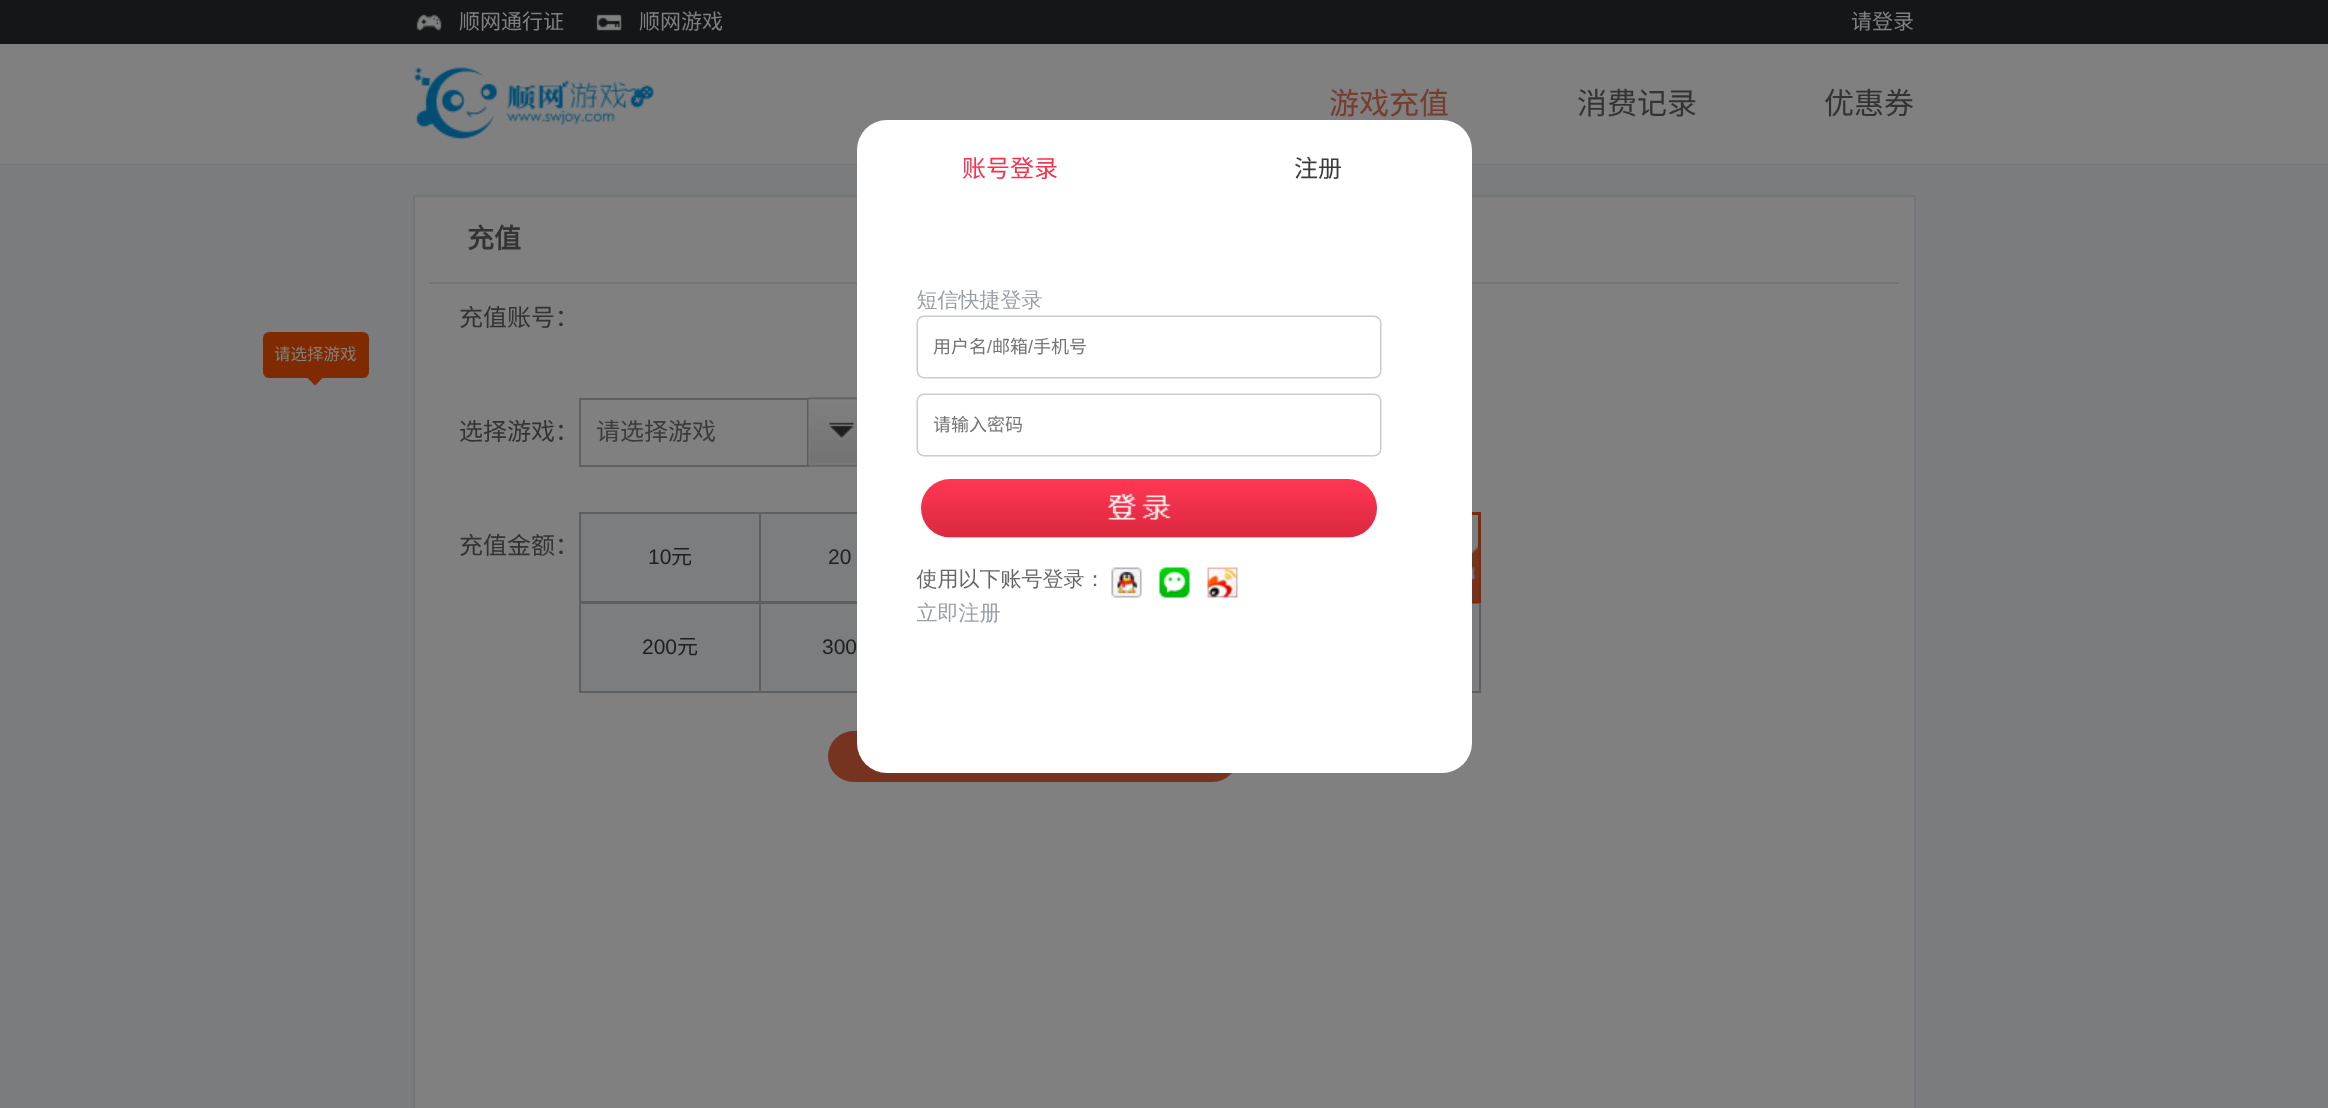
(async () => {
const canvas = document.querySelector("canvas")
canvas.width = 2328
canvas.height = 1108
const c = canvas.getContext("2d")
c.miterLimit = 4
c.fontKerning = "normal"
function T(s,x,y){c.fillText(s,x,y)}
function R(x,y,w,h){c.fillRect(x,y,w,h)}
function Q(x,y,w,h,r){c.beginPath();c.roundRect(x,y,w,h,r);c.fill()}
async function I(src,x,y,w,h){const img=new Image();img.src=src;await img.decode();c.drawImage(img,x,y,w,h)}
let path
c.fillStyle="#808080"
R(0,0,2328,1108)
c.fillStyle="#141617"
R(0,0,2328,44)
await I("1.png",416,14,26,17)
c.font="21px Noto Sans CJK SC"
c.fillStyle="#808080"
T("顺网通行证",459,29)
await I("2.png",596,14,26,17)
T("顺网游戏",639,29)
T("请登录",1851,29)
c.fillStyle="#757577"
R(0,164,2328,1)
await I("3.png",414,67,240,73)
c.font="30px Noto Sans CJK SC"
c.fillStyle="#763c2d"
T("游戏充值",1329,114)
c.fillStyle="#333"
T("消费记录",1577,114)
T("优惠券",1824,114)
c.fillStyle="#7b7c7e"
R(0,165,2328,943)
c.fillStyle="#808080"
c.beginPath()
c.rect(414,196,1501,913)
c.fill()
c.strokeStyle="#757577"
c.lineWidth=2
c.stroke()
c.fillStyle="#757577"
R(429,282,1470,2)
c.fillStyle="#7c7d7e"
c.beginPath()
c.rect(580,513,180,89)
c.fill()
c.strokeStyle="#5f5f5f"
c.stroke()
R(761,514,96,87)
c.strokeRect(760,513,180,89)
R(1472,515,6,39)
R(1472,604,7,87)
c.strokeRect(1300,603,180,89)
c.strokeStyle="#7f2a00"
c.lineWidth=3
c.strokeRect(1300.5,513.5,179,88)
c.beginPath()
c.rect(580,603,180,89)
c.fill()
c.strokeStyle="#5f5f5f"
c.lineWidth=2
c.stroke()
R(761,604,96,87)
c.strokeRect(760,603,180,89)
c.fillStyle="#763420"
Q(828,731,410,51,25.5)
c.fillStyle="#fff"
Q(857,120,615,653,30)
c.font="24px Noto Sans CJK SC"
c.fillStyle="#f5334e"
T("账号登录",962,177)
c.fillStyle="#3b3b3b"
T("注册",1294,177)
await I("4.png",916,289,466,334)
c.font="bold 27px Noto Sans CJK SC"
c.fillStyle="#333"
T("充值",467,248)
c.font="24px Noto Sans CJK SC"
T("充值账号：",459,326)
c.fillStyle="#7f2a00"
Q(263,332,106,46,6)
c.font="16.5px Noto Sans CJK SC"
c.fillStyle="#808080"
T("请选择游戏",274,360)
c.fillStyle="#7f2a00"
path = new Path2D("M307.5 378h15l-7.5 7.5z")
c.fill(path)
c.strokeRect(580,399,228,67)
c.font="24px Noto Sans CJK SC"
c.fillStyle="#3b3b3b"
T("请选择游戏",596,440)
await I("5.png",808,397,49,70)
c.fillStyle="#333"
T("选择游戏：",459,440)
T("充值金额：",459,554)
c.font="21px Liberation Sans"
c.fillStyle="#1f1f1f"
T("10",648,564)
c.font="21px Noto Sans CJK SC"
T("元",671,564)
c.font="21px Liberation Sans"
T("20",828,564)
await I("6.png",1472,546,7,56)
T("200",642,654)
c.font="21px Noto Sans CJK SC"
T("元",677,654)
c.font="21px Liberation Sans"
T("300",822,654)
})()
